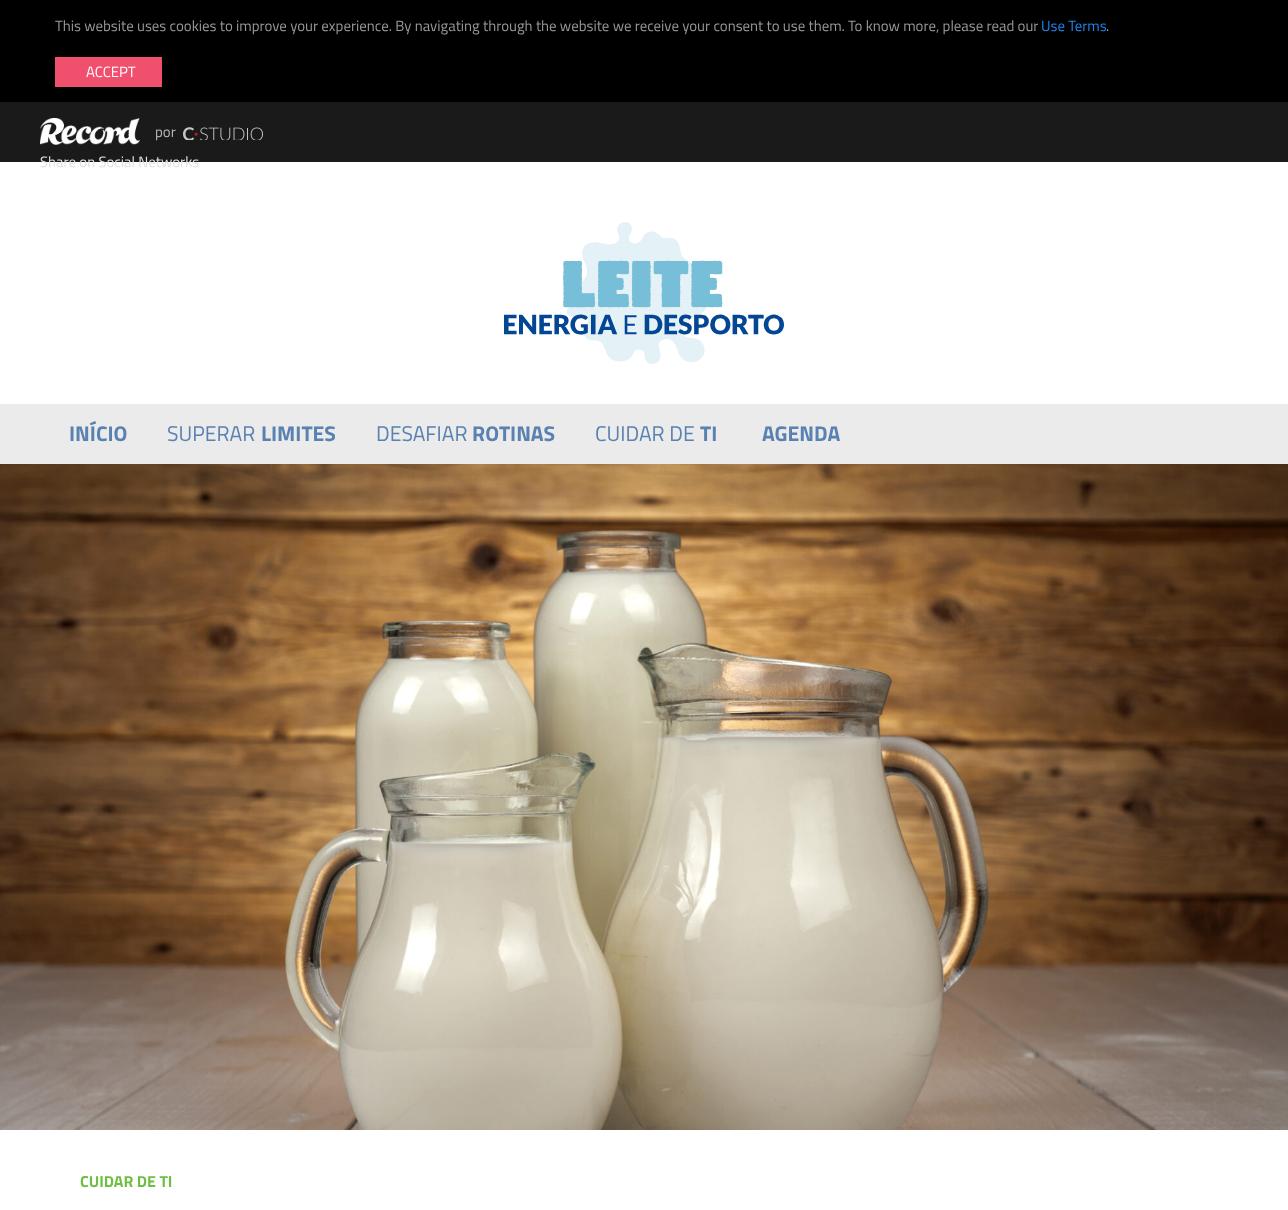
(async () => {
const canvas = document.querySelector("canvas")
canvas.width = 1288
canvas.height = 1210
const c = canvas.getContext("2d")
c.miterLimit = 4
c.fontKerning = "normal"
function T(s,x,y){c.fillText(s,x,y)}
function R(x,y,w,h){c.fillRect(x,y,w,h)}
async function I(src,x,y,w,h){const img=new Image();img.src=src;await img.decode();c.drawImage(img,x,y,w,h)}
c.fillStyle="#fff"
R(0,0,1288,1210)
c.fillStyle="#000"
R(0,0,1288,102)
c.font="14.88px Titillium Web"
c.fillStyle="#999"
T("This website uses cookies to improve your experience. By navigating through the website we receive your consent to use them. To know more, please read our",55,31)
c.fillStyle="#1e87f0"
T("Use Terms",1041,31)
c.fillStyle="#999"
T(".",1106,31)
c.fillStyle="#f0506e"
R(55,57,107,30)
c.fillStyle="#fff"
T("ACCEPT",86,77)
c.fillStyle="#1a1a1a"
R(0,102,1288,60)
await I("1.png",40,118,100,27)
c.fillStyle="#bababa"
T("por",155,137)
await I("2.png",183,127,80,13)
c.fillStyle="#e2e2e2"
T("Share on Social Networks",40,167)
await I("3.png",504,222,280,142)
c.fillStyle="#ebebeb"
R(0,404,1288,60)
c.font="bold 21.25px Titillium Web"
c.fillStyle="#5981b1"
T("INÍCIO",69,441)
c.font="21.25px Titillium Web"
T("SUPERAR",167,441)
c.font="bold 21.25px Titillium Web"
T("LIMITES",261,441)
c.font="21.25px Titillium Web"
T("DESAFIAR",376,441)
c.font="bold 21.25px Titillium Web"
T("ROTINAS",472,441)
c.font="21.25px Titillium Web"
T("CUIDAR DE",595,441)
c.font="bold 21.25px Titillium Web"
T("TI",700,441)
T("AGENDA",762,441)
await I("4.png",0,464,1288,666)
c.font="bold 16px Titillium Web"
c.fillStyle="#70be43"
T("CUIDAR DE TI",80,1187)
})()
